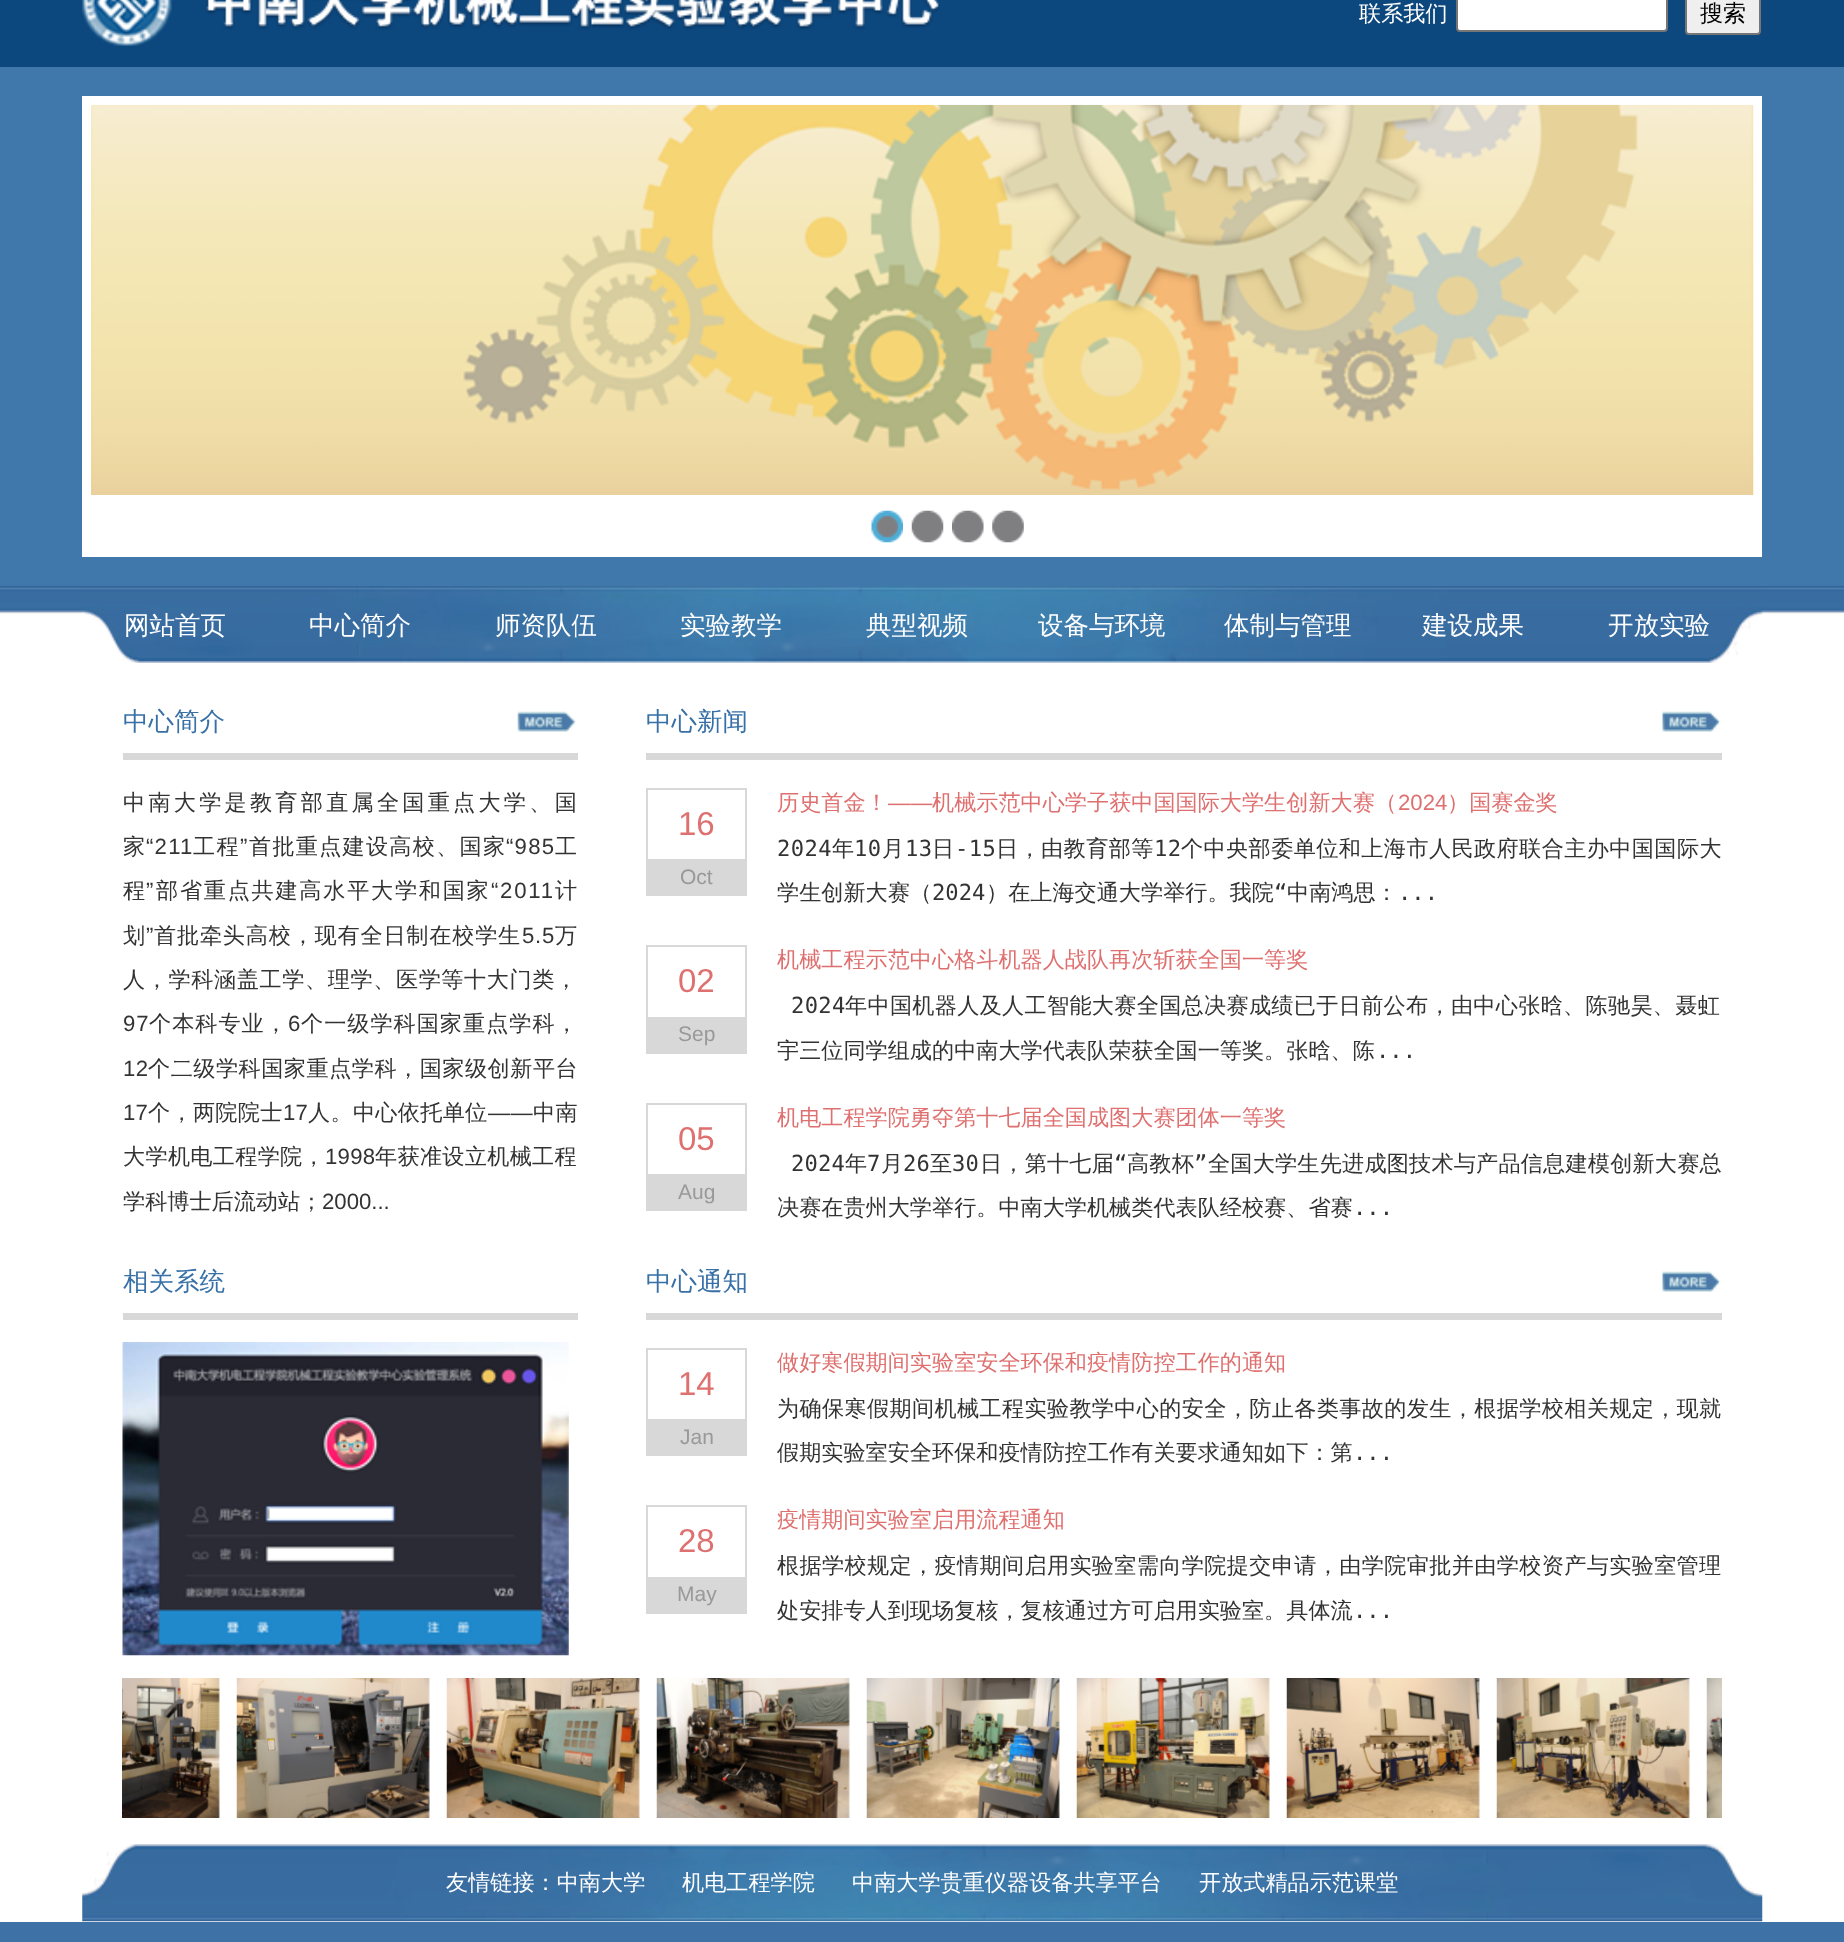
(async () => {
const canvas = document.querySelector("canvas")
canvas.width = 1844
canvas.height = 1942
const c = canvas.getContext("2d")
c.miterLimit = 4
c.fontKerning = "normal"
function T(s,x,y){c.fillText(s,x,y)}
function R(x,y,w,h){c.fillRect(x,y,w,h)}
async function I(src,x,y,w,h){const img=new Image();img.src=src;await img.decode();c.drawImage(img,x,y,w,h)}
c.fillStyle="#fff"
R(0,0,1844,1942)
c.fillStyle="#0c477d"
R(0,0,1844,67)
await I("1.png",82,0,858,46)
c.font="500 22.15px WenQuanYi Zen Hei"
c.fillStyle="#fff"
T("联系我们",1359,21)
c.beginPath()
c.roundRect(1457,-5,210,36,3)
c.fill()
c.strokeStyle="#767676"
c.lineWidth=2
c.stroke()
c.fillStyle="#efefef"
c.beginPath()
c.roundRect(1686,-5,74,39,3)
c.fill()
c.stroke()
c.font="500 23px WenQuanYi Zen Hei"
c.fillStyle="#000"
T("搜索",1700,21)
c.fillStyle="#4178ab"
R(0,67,1844,519)
c.fillStyle="#fff"
R(82,96,1680,461)
await I("2.png",91,104,1663,391)
await I("3.png",871,510,32,33)
await I("4.png",911,510,33,33)
await I("5.png",952,510,32,33)
await I("6.png",992,510,32,33)
await I("7.png",0,586,1844,28)
await I("8.png",82,586,1681,77)
c.font="500 25.5px WenQuanYi Zen Hei"
T("网站首页",124,634)
T("中心简介",309,634)
T("师资队伍",495,634)
T("实验教学",680,634)
T("典型视频",866,634)
T("设备与环境",1038,634)
T("体制与管理",1224,634)
T("建设成果",1422,634)
T("开放实验",1608,634)
c.fillStyle="#d8d8d8"
R(123,753,455,7)
c.fillStyle="#3770a6"
T("中心简介",123,730)
await I("9.png",517,711,59,21)
c.letterSpacing="3.25px"
c.font="500 22.15px WenQuanYi Zen Hei"
c.fillStyle="#333"
T("中南大学是教育部直属全国重点大学、国",123,810)
c.letterSpacing="1.25px"
T("家",123,854)
c.font="22.15px Liberation Sans"
T("“211",146,854)
c.font="500 22.15px WenQuanYi Zen Hei"
T("工程",193,854)
c.font="22.15px Liberation Sans"
T("”",240,854)
c.font="500 22.15px WenQuanYi Zen Hei"
T("首批重点建设高校、国家",249,854)
c.font="22.15px Liberation Sans"
T("“985",506,854)
c.font="500 22.15px WenQuanYi Zen Hei"
T("工",555,854)
c.letterSpacing="1.75px"
T("程",123,898)
c.font="22.15px Liberation Sans"
T("”",146,898)
c.font="500 22.15px WenQuanYi Zen Hei"
T("部省重点共建高水平大学和国家",156,898)
c.font="22.15px Liberation Sans"
T("“2011",491,898)
c.font="500 22.15px WenQuanYi Zen Hei"
T("计",555,898)
c.letterSpacing="0.8px"
T("划",123,943)
c.font="22.15px Liberation Sans"
T("”",146,943)
c.font="500 22.15px WenQuanYi Zen Hei"
T("首批牵头高校，现有全日制在校学生",154,943)
c.font="22.15px Liberation Sans"
T("5.5",522,943)
c.font="500 22.15px WenQuanYi Zen Hei"
T("万",555,943)
c.letterSpacing="0.6px"
T("人，学科涵盖工学、理学、医学等十大门类，",123,987)
c.letterSpacing="1px"
c.font="22.15px Liberation Sans"
T("97",123,1031)
c.font="500 22.15px WenQuanYi Zen Hei"
T("个本科专业，",149,1031)
c.font="22.15px Liberation Sans"
T("6",288,1031)
c.font="500 22.15px WenQuanYi Zen Hei"
T("个一级学科国家重点学科，",301,1031)
c.letterSpacing="0.5px"
c.font="22.15px Liberation Sans"
T("12",123,1076)
c.font="500 22.15px WenQuanYi Zen Hei"
T("个二级学科国家重点学科，国家级创新平台",148,1076)
c.letterSpacing="0.3px"
c.font="22.15px Liberation Sans"
T("17",123,1120)
c.font="500 22.15px WenQuanYi Zen Hei"
T("个，两院院士",148,1120)
c.font="22.15px Liberation Sans"
T("17",283,1120)
c.font="500 22.15px WenQuanYi Zen Hei"
T("人。中心依托单位",308,1120)
c.font="22.15px Liberation Sans"
T("——",488,1120)
c.font="500 22.15px WenQuanYi Zen Hei"
T("中南",533,1120)
T("大学机电工程学院，",123,1164)
c.font="22.15px Liberation Sans"
T("1998",325,1164)
c.font="500 22.15px WenQuanYi Zen Hei"
T("年获准设立机械工程",375,1164)
c.letterSpacing="0px"
T("学科博士后流动站；",123,1209)
c.font="22.15px Liberation Sans"
T("2000...",322,1209)
c.fillStyle="#d8d8d8"
R(646,753,1076,7)
c.font="500 25.5px WenQuanYi Zen Hei"
c.fillStyle="#3770a6"
T("中心新闻",646,730)
await I("10.png",1662,711,59,21)
c.strokeStyle="#d8d8d8"
c.strokeRect(647,789,99,106)
c.font="33px Liberation Sans"
c.fillStyle="#df7070"
T("16",678,835)
c.fillStyle="#d8d8d8"
R(648,859,97,35)
c.font="21px Liberation Sans"
c.fillStyle="#999"
T("Oct",680,884)
c.font="500 22.15px WenQuanYi Zen Hei"
c.fillStyle="#df7070"
T("历史首金！",777,810)
c.font="22.15px Liberation Sans"
T("——",888,810)
c.font="500 22.15px WenQuanYi Zen Hei"
T("机械示范中心学子获中国国际大学生创新大赛（",932,810)
c.font="22.15px Liberation Sans"
T("2024",1398,810)
c.font="500 22.15px WenQuanYi Zen Hei"
T("）国赛金奖",1447,810)
c.letterSpacing="0.4px"
c.font="22.15px DejaVu Sans Mono"
c.fillStyle="#333"
T("2024",777,856)
c.font="500 22.15px WenQuanYi Zen Hei"
T("年",832,856)
c.font="22.15px DejaVu Sans Mono"
T("10",854,856)
c.font="500 22.15px WenQuanYi Zen Hei"
T("月",882,856)
c.font="22.15px DejaVu Sans Mono"
T("13",905,856)
c.font="500 22.15px WenQuanYi Zen Hei"
T("日",932,856)
c.font="22.15px DejaVu Sans Mono"
T("-15",955,856)
c.font="500 22.15px WenQuanYi Zen Hei"
T("日，由教育部等",996,856)
c.font="22.15px DejaVu Sans Mono"
T("12",1154,856)
c.font="500 22.15px WenQuanYi Zen Hei"
T("个中央部委单位和上海市人民政府联合主办中国国际大",1181,856)
c.letterSpacing="0px"
T("学生创新大赛（",777,900)
c.font="22.15px DejaVu Sans Mono"
T("2024",932,900)
c.font="500 22.15px WenQuanYi Zen Hei"
T("）在上海交通大学举行。我院",986,900)
c.font="22.15px DejaVu Sans Mono"
T("“",1274,900)
c.font="500 22.15px WenQuanYi Zen Hei"
T("中南鸿思：",1287,900)
c.font="22.15px DejaVu Sans Mono"
T("...",1398,900)
c.strokeRect(647,946,99,107)
c.font="33px Liberation Sans"
c.fillStyle="#df7070"
T("02",678,992)
c.fillStyle="#d8d8d8"
R(648,1017,97,35)
c.font="21px Liberation Sans"
c.fillStyle="#999"
T("Sep",678,1041)
c.font="500 22.15px WenQuanYi Zen Hei"
c.fillStyle="#df7070"
T("机械工程示范中心格斗机器人战队再次斩获全国一等奖",777,967)
c.letterSpacing="0.3px"
c.font="22.15px DejaVu Sans Mono"
c.fillStyle="#333"
T("2024",791,1013)
c.font="500 22.15px WenQuanYi Zen Hei"
T("年中国机器人及人工智能大赛全国总决赛成绩已于日前公布，由中心张晗、陈驰昊、聂虹",845,1013)
c.letterSpacing="0px"
T("宇三位同学组成的中南大学代表队荣获全国一等奖。张晗、陈",777,1058)
c.font="22.15px DejaVu Sans Mono"
T("...",1376,1058)
c.strokeRect(647,1104,99,106)
c.font="33px Liberation Sans"
c.fillStyle="#df7070"
T("05",678,1150)
c.fillStyle="#d8d8d8"
R(648,1174,97,35)
c.font="21px Liberation Sans"
c.fillStyle="#999"
T("Aug",678,1199)
c.font="500 22.15px WenQuanYi Zen Hei"
c.fillStyle="#df7070"
T("机电工程学院勇夺第十七届全国成图大赛团体一等奖",777,1125)
c.letterSpacing="0.2px"
c.font="22.15px DejaVu Sans Mono"
c.fillStyle="#333"
T("2024",791,1171)
c.font="500 22.15px WenQuanYi Zen Hei"
T("年",845,1171)
c.font="22.15px DejaVu Sans Mono"
T("7",867,1171)
c.font="500 22.15px WenQuanYi Zen Hei"
T("月",881,1171)
c.font="22.15px DejaVu Sans Mono"
T("26",903,1171)
c.font="500 22.15px WenQuanYi Zen Hei"
T("至",930,1171)
c.font="22.15px DejaVu Sans Mono"
T("30",952,1171)
c.font="500 22.15px WenQuanYi Zen Hei"
T("日，第十七届",980,1171)
c.font="22.15px DejaVu Sans Mono"
T("“",1114,1171)
c.font="500 22.15px WenQuanYi Zen Hei"
T("高教杯",1127,1171)
c.font="22.15px DejaVu Sans Mono"
T("”",1194,1171)
c.font="500 22.15px WenQuanYi Zen Hei"
T("全国大学生先进成图技术与产品信息建模创新大赛总",1208,1171)
c.letterSpacing="0px"
T("决赛在贵州大学举行。中南大学机械类代表队经校赛、省赛",777,1215)
c.font="22.15px DejaVu Sans Mono"
T("...",1353,1215)
c.fillStyle="#d8d8d8"
R(123,1313,455,7)
c.font="500 25.5px WenQuanYi Zen Hei"
c.fillStyle="#3770a6"
T("相关系统",123,1290)
await I("11.png",122,1342,447,314)
c.fillStyle="#d8d8d8"
R(646,1313,1076,7)
c.fillStyle="#3770a6"
T("中心通知",646,1290)
await I("10.png",1662,1271,59,21)
c.strokeRect(647,1349,99,106)
c.font="33px Liberation Sans"
c.fillStyle="#df7070"
T("14",678,1395)
c.fillStyle="#d8d8d8"
R(648,1419,97,35)
c.font="21px Liberation Sans"
c.fillStyle="#999"
T("Jan",680,1444)
c.font="500 22.15px WenQuanYi Zen Hei"
c.fillStyle="#df7070"
T("做好寒假期间实验室安全环保和疫情防控工作的通知",777,1370)
c.letterSpacing="0.35px"
c.fillStyle="#333"
T("为确保寒假期间机械工程实验教学中心的安全，防止各类事故的发生，根据学校相关规定，现就",777,1416)
c.letterSpacing="0px"
T("假期实验室安全环保和疫情防控工作有关要求通知如下：第",777,1460)
c.font="22.15px DejaVu Sans Mono"
T("...",1353,1460)
c.strokeRect(647,1506,99,107)
c.font="33px Liberation Sans"
c.fillStyle="#df7070"
T("28",678,1552)
c.fillStyle="#d8d8d8"
R(648,1577,97,35)
c.font="21px Liberation Sans"
c.fillStyle="#999"
T("May",677,1601)
c.font="500 22.15px WenQuanYi Zen Hei"
c.fillStyle="#df7070"
T("疫情期间实验室启用流程通知",777,1527)
c.letterSpacing="0.35px"
c.fillStyle="#333"
T("根据学校规定，疫情期间启用实验室需向学院提交申请，由学院审批并由学校资产与实验室管理",777,1573)
c.letterSpacing="0px"
T("处安排专人到现场复核，复核通过方可启用实验室。具体流",777,1618)
c.font="22.15px DejaVu Sans Mono"
T("...",1353,1618)
await I("12.png",122,1678,98,140)
await I("13.png",236,1678,194,140)
await I("14.png",446,1678,194,140)
await I("15.png",656,1678,194,140)
await I("16.png",866,1678,194,140)
await I("17.png",1076,1678,194,140)
await I("18.png",1286,1678,194,140)
await I("19.png",1496,1678,194,140)
await I("20.png",1706,1678,16,140)
await I("21.png",82,1844,1681,78)
c.font="500 22.15px WenQuanYi Zen Hei"
c.fillStyle="#fff"
T("友情链接：中南大学",446,1890)
T("机电工程学院",682,1890)
T("中南大学贵重仪器设备共享平台",852,1890)
T("开放式精品示范课堂",1199,1890)
c.fillStyle="#3e71a5"
R(0,1922,1844,20)
})()
